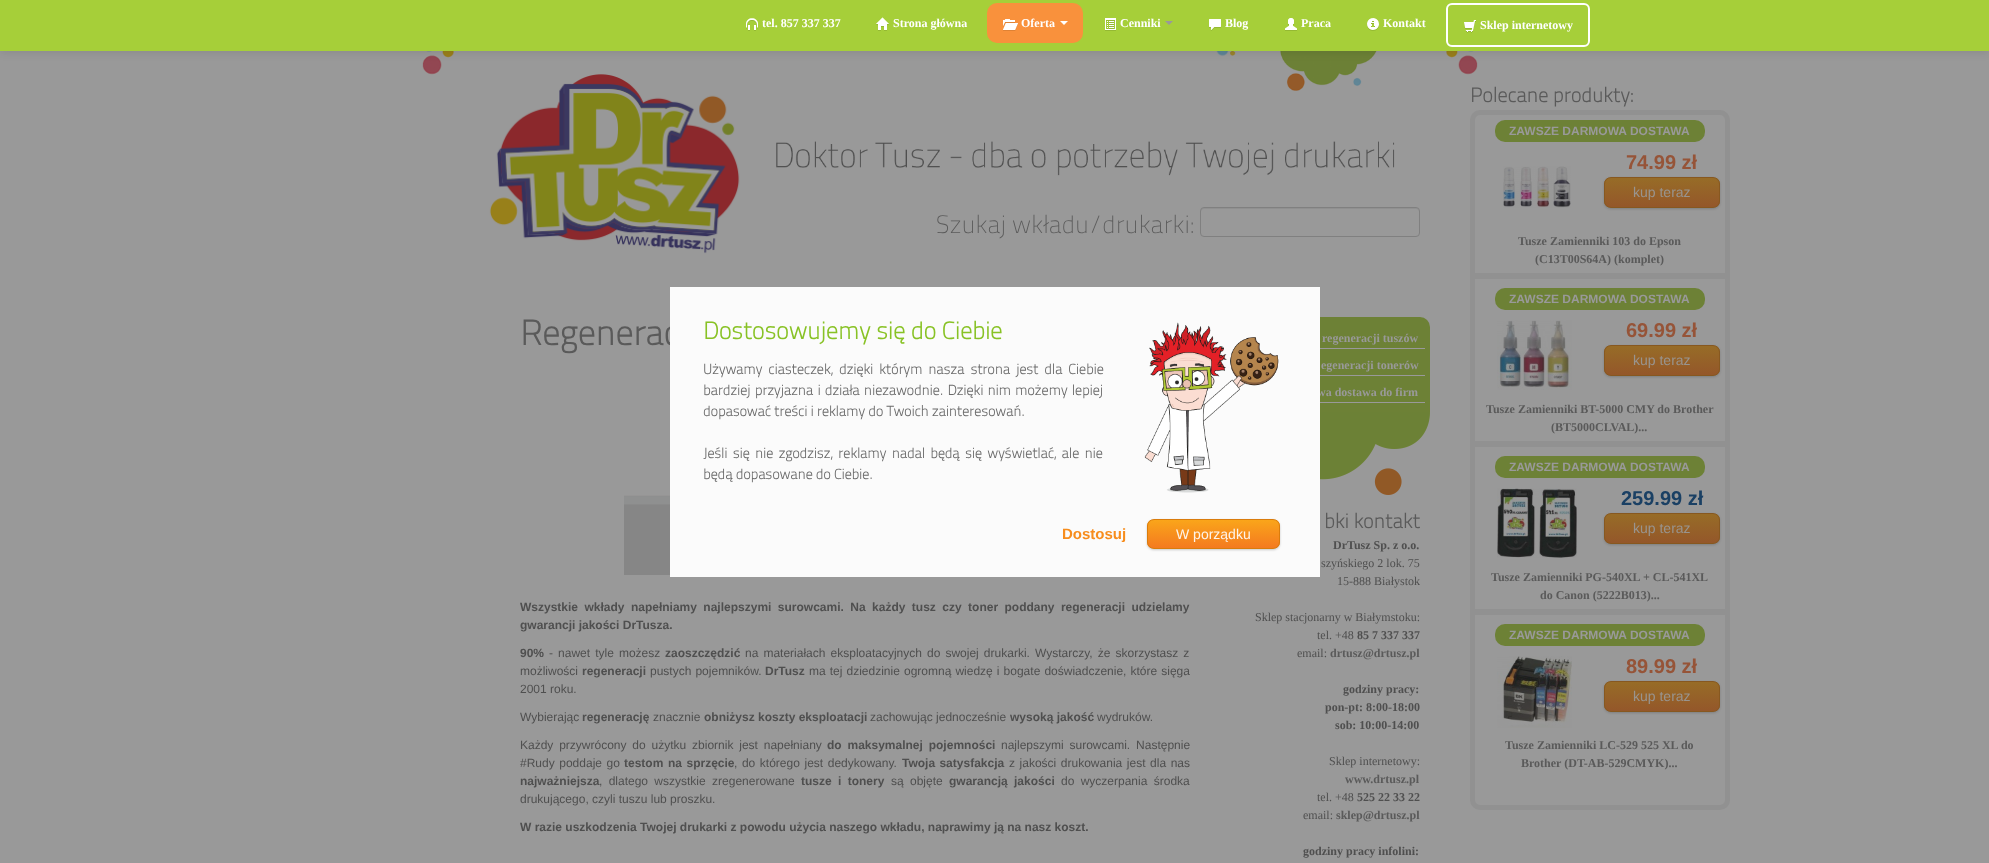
(async () => {
const canvas = document.querySelector("canvas")
canvas.width = 1989
canvas.height = 863
const c = canvas.getContext("2d")
c.miterLimit = 4
c.fontKerning = "normal"
function T(s,x,y){c.fillText(s,x,y)}
function R(x,y,w,h){c.fillRect(x,y,w,h)}
function Q(x,y,w,h,r){c.beginPath();c.roundRect(x,y,w,h,r);c.fill()}
async function I(src,x,y,w,h){const img=new Image();img.src=src;await img.decode();c.drawImage(img,x,y,w,h)}
let gradient, path
c.fillStyle="#999"
R(0,0,1989,863)
await I("9.png",422,51,32,24)
await I("10.png",1446,51,32,24)
await I("12.png",776,51,619,125)
c.fillStyle="#0000001a"
c.filter="blur(5px)"
c.beginPath()
c.rect(0,1,1989,51)
c.fill()
c.filter="none"
c.fillStyle="#a6cf39"
R(0,0,1989,51)
await I("1.png",746,18,12,13)
c.font="bold 12px Liberation Serif"
c.fillStyle="#fff"
T("tel. 857 337 337",762,27)
await I("2.png",876,17,13,14)
T("Strona główna",893,27)
c.fillStyle="#f9913c"
Q(987,3,96,40,10)
await I("3.png",1003,19,15,12)
c.fillStyle="#fff"
T("Oferta",1021,27)
path = new Path2D("M1060 21h8l-4 4z")
c.fill(path)
await I("4.png",1105,18,11,13)
T("Cenniki",1120,27)
c.fillStyle="#999"
path = new Path2D("M1165 21h8l-4 4z")
c.fill(path)
await I("5.png",1209,19,12,12)
c.fillStyle="#fff"
T("Blog",1225,27)
await I("6.png",1285,18,12,13)
T("Praca",1301,27)
await I("7.png",1367,18,12,13)
T("Kontakt",1383,27)
c.beginPath()
c.roundRect(1447,4,142,42,5)
c.strokeStyle="#fff"
c.lineWidth=2
c.stroke()
await I("8.png",1464,20,12,13)
T("Sklep internetowy",1480,29)
await I("11.png",489,74,251,180)
c.font="100 25px 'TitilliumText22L'"
c.fillStyle="#5a5a5a"
T("Szukaj wkładu/drukarki:",936,233)
c.fillStyle="#909090"
path = new Path2D("M1204 209h212c2 0 3 1 3 3v-1c0-2-1-3-3-3h-212c-2 0-3 1-3 3v1c0-2 1-3 3-3z")
c.fill(path)
c.beginPath()
c.roundRect(1200.5,207.5,219,29,3.5)
c.strokeStyle="#808080"
c.lineWidth=1
c.stroke()
c.font="bold 35px 'TitilliumText22L'"
c.fillStyle="#5a5a5a"
T("Regenerac",520,345)
await I("13.png",624,375,46,200)
c.wordSpacing="3.1px"
c.font="bold 12px Liberation Sans"
c.fillStyle="#4f4f4f"
T("Wszystkie wkłady napełniamy najlepszymi surowcami. Na każdy tusz czy toner poddany regeneracji udzielamy",520,611)
c.wordSpacing="0px"
T("gwarancji jakości DrTusza.",520,629)
T("90%",520,657)
c.wordSpacing="1.75px"
c.font="12px Liberation Sans"
T("- nawet tyle możesz",549,657)
c.wordSpacing="0px"
c.font="bold 12px Liberation Sans"
T("zaoszczędzić",665,657)
c.wordSpacing="1.75px"
c.font="12px Liberation Sans"
T("na materiałach eksploatacyjnych do swojej drukarki. Wystarczy, że skorzystasz z",745,657)
c.wordSpacing="0px"
T("możliwości",520,675)
c.font="bold 12px Liberation Sans"
T("regeneracji",582,675)
c.wordSpacing="0.75px"
c.font="12px Liberation Sans"
T("pustych pojemników.",650,675)
c.wordSpacing="0px"
c.font="bold 12px Liberation Sans"
T("DrTusz",765,675)
c.wordSpacing="0.75px"
c.font="12px Liberation Sans"
T("ma tej dziedzinie ogromną wiedzę i bogate doświadczenie, które sięga",809,675)
c.wordSpacing="0px"
T("2001 roku.",520,693)
T("Wybierając",520,721)
c.font="bold 12px Liberation Sans"
T("regenerację",582,721)
c.font="12px Liberation Sans"
T("znacznie",653,721)
c.font="bold 12px Liberation Sans"
T("obniżysz koszty eksploatacji",704,721)
c.font="12px Liberation Sans"
T("zachowując jednocześnie",870,721)
c.font="bold 12px Liberation Sans"
T("wysoką jakość",1010,721)
c.font="12px Liberation Sans"
T("wydruków.",1097,721)
c.wordSpacing="2.5px"
T("Każdy przywrócony do użytku zbiornik jest napełniany",520,749)
c.font="bold 12px Liberation Sans"
T("do maksymalnej pojemności",827,749)
c.font="12px Liberation Sans"
T("najlepszymi surowcami. Następnie",1001,749)
c.wordSpacing="1.25px"
T("#Rudy poddaje go",520,767)
c.font="bold 12px Liberation Sans"
T("testom na sprzęcie",624,767)
c.font="12px Liberation Sans"
T(", do którego jest dedykowany.",734,767)
c.wordSpacing="1px"
c.font="bold 12px Liberation Sans"
T("Twoja satysfakcja",902,767)
c.wordSpacing="1.25px"
c.font="12px Liberation Sans"
T("z jakości drukowania jest dla nas",1009,767)
c.wordSpacing="0px"
c.font="bold 12px Liberation Sans"
T("najważniejsza",520,785)
c.wordSpacing="3px"
c.font="12px Liberation Sans"
T(", dlatego wszystkie zregenerowane",599,785)
c.font="bold 12px Liberation Sans"
T("tusze i tonery",801,785)
c.font="12px Liberation Sans"
T("są objęte",891,785)
c.font="bold 12px Liberation Sans"
T("gwarancją jakości",949,785)
c.font="12px Liberation Sans"
T("do wyczerpania środka",1061,785)
c.wordSpacing="0px"
T("drukującego, czyli tuszu lub proszku.",520,803)
c.font="bold 12px Liberation Sans"
T("W razie uszkodzenia Twojej drukarki z powodu użycia naszego wkładu, naprawimy ją na nasz koszt.",520,831)
c.fillStyle="#6d8136"
c.beginPath()
c.roundRect(1210,317,220,96,[10,10,0,0])
c.fill()
c.fillStyle="#999"
R(1320,348,105,1)
c.font="bold 12px Liberation Serif"
T("regeneracji tuszów",1322,342)
R(1320,375,105,1)
T("egeneracji tonerów",1321,369)
R(1320,402,105,1)
T("wa dostawa do firm",1317,396)
await I("14.png",1320,412,110,83)
c.font="bold 20px 'TitilliumText22L'"
c.fillStyle="#5a5a5a"
T("bki kontakt",1324,528)
c.font="bold 12px Liberation Serif"
c.fillStyle="#4f4f4f"
T("DrTusz Sp. z o.o.",1333,549)
c.font="12px Liberation Serif"
T("szyńskiego 2 lok. 75",1321,567)
T("15-888 Białystok",1337,585)
T("Sklep stacjonarny w Białymstoku:",1255,621)
T("tel. +48",1317,639)
c.font="bold 12px Liberation Serif"
T("85 7 337 337",1357,639)
c.font="12px Liberation Serif"
T("email:",1297,657)
c.font="bold 12px Liberation Serif"
c.fillStyle="#5a5a5a"
T("drtusz@drtusz.pl",1330,657)
c.fillStyle="#4f4f4f"
T("godziny pracy:",1343,693)
T("pon-pt: 8:00-18:00",1325,711)
T("sob: 10:00-14:00",1335,729)
c.font="12px Liberation Serif"
T("Sklep internetowy:",1329,765)
c.font="bold 12px Liberation Serif"
c.fillStyle="#5a5a5a"
T("www.drtusz.pl",1345,783)
c.font="12px Liberation Serif"
c.fillStyle="#4f4f4f"
T("tel. +48",1317,801)
c.font="bold 12px Liberation Serif"
T("525 22 33 22",1357,801)
c.font="12px Liberation Serif"
T("email:",1303,819)
c.font="bold 12px Liberation Serif"
c.fillStyle="#5a5a5a"
T("sklep@drtusz.pl",1336,819)
c.fillStyle="#4f4f4f"
T("godziny pracy infolini:",1303,855)
c.font="bold 20px 'TitilliumText22L'"
c.fillStyle="#5a5a5a"
T("Polecane produkty:",1470,102)
c.beginPath()
c.roundRect(1472.5,112.5,255,695,7.5)
c.strokeStyle="#919191"
c.lineWidth=5
c.stroke()
c.fillStyle="#6d8136"
Q(1495,120,210,22,10)
c.font="bold 12px Liberation Sans"
c.fillStyle="#999"
T("ZAWSZE DARMOWA DOSTAWA",1509,135)
c.font="bold 20px Liberation Sans"
c.fillStyle="#965438"
T("74.99 zł",1626,169)
await I("15.png",1503,166,68,42)
c.fillStyle="#1a1a1a33"
c.filter="blur(1px)"
c.beginPath()
c.roundRect(1604,178,116,31,7)
c.fill()
c.filter="none"
c.save()
c.beginPath()
c.roundRect(1604,177,116,31,7)
c.clip()
gradient = c.createLinearGradient(1605,178,1605,207)
gradient.addColorStop(0,"#976c27")
gradient.addColorStop(1,"#94572a")
c.fillStyle = gradient
R(1604,178,116,29)
c.restore()
c.beginPath()
c.roundRect(1604.5,177.5,115,30,6.5)
c.strokeStyle="#875820"
c.lineWidth=1
c.stroke()
c.font="14px Liberation Sans"
c.fillStyle="#99948e"
T("kup teraz",1633,197)
c.font="bold 12px Liberation Serif"
c.fillStyle="#5a5a5a"
T("Tusze Zamienniki 103 do Epson",1518,245)
T("(C13T00S64A) (komplet)",1535,263)
c.fillStyle="#919191"
R(1475,273,250,6)
c.fillStyle="#6d8136"
Q(1495,288,210,22,10)
c.font="bold 12px Liberation Sans"
c.fillStyle="#999"
T("ZAWSZE DARMOWA DOSTAWA",1509,303)
await I("16.png",1497,320,75,70)
c.font="bold 20px Liberation Sans"
c.fillStyle="#965438"
T("69.99 zł",1626,337)
c.fillStyle="#1a1a1a33"
c.filter="blur(1px)"
c.beginPath()
c.roundRect(1604,346,116,31,7)
c.fill()
c.filter="none"
c.save()
c.beginPath()
c.roundRect(1604,345,116,31,7)
c.clip()
gradient = c.createLinearGradient(1605,346,1605,375)
gradient.addColorStop(0,"#976c27")
gradient.addColorStop(1,"#94572a")
c.fillStyle = gradient
R(1604,346,116,29)
c.restore()
c.beginPath()
c.roundRect(1604.5,345.5,115,30,6.5)
c.stroke()
c.font="14px Liberation Sans"
c.fillStyle="#99948e"
T("kup teraz",1633,365)
c.font="bold 12px Liberation Serif"
c.fillStyle="#5a5a5a"
T("Tusze Zamienniki BT-5000 CMY do Brother",1486,413)
T("(BT5000CLVAL)...",1551,431)
c.fillStyle="#919191"
R(1475,441,250,6)
c.fillStyle="#6d8136"
Q(1495,456,210,22,10)
c.font="bold 12px Liberation Sans"
c.fillStyle="#999"
T("ZAWSZE DARMOWA DOSTAWA",1509,471)
await I("17.png",1497,488,80,70)
c.font="bold 20px Liberation Sans"
c.fillStyle="#1a4064"
T("259.99 zł",1621,505)
c.fillStyle="#1a1a1a33"
c.filter="blur(1px)"
c.beginPath()
c.roundRect(1604,514,116,31,7)
c.fill()
c.filter="none"
c.save()
c.beginPath()
c.roundRect(1604,513,116,31,7)
c.clip()
gradient = c.createLinearGradient(1605,514,1605,543)
gradient.addColorStop(0,"#976c27")
gradient.addColorStop(1,"#94572a")
c.fillStyle = gradient
R(1604,514,116,29)
c.restore()
c.beginPath()
c.roundRect(1604.5,513.5,115,30,6.5)
c.stroke()
c.font="14px Liberation Sans"
c.fillStyle="#99948e"
T("kup teraz",1633,533)
c.font="bold 12px Liberation Serif"
c.fillStyle="#5a5a5a"
T("Tusze Zamienniki PG-540XL + CL-541XL",1491,581)
T("do Canon (5222B013)...",1540,599)
c.fillStyle="#919191"
R(1475,609,250,6)
c.fillStyle="#6d8136"
Q(1495,624,210,22,10)
c.font="bold 12px Liberation Sans"
c.fillStyle="#999"
T("ZAWSZE DARMOWA DOSTAWA",1509,639)
await I("18.png",1497,656,75,72)
c.font="bold 20px Liberation Sans"
c.fillStyle="#965438"
T("89.99 zł",1626,673)
c.fillStyle="#1a1a1a33"
c.filter="blur(1px)"
c.beginPath()
c.roundRect(1604,682,116,31,7)
c.fill()
c.filter="none"
c.save()
c.beginPath()
c.roundRect(1604,681,116,31,7)
c.clip()
gradient = c.createLinearGradient(1605,682,1605,711)
gradient.addColorStop(0,"#976c27")
gradient.addColorStop(1,"#94572a")
c.fillStyle = gradient
R(1604,682,116,29)
c.restore()
c.beginPath()
c.roundRect(1604.5,681.5,115,30,6.5)
c.stroke()
c.font="14px Liberation Sans"
c.fillStyle="#99948e"
T("kup teraz",1633,701)
c.font="bold 12px Liberation Serif"
c.fillStyle="#5a5a5a"
T("Tusze Zamienniki LC-529 525 XL do",1505,749)
T("Brother (DT-AB-529CMYK)...",1521,767)
c.fillStyle="#fbfbfb"
R(670,287,650,290)
c.font="bold 24px 'TitilliumText22L'"
c.fillStyle="#88c225"
T("Dostosowujemy się do Ciebie",703,339)
c.wordSpacing="2.75px"
c.font="bold 14px 'TitilliumText22L'"
c.fillStyle="#6b6b6b"
T("Używamy ciasteczek, dzięki którym nasza strona jest dla Ciebie",703,374)
c.wordSpacing="1px"
T("bardziej przyjazna i działa niezawodnie. Dzięki nim możemy lepiej",703,395)
c.wordSpacing="0px"
T("dopasować treści i reklamy do Twoich zainteresowań.",703,416)
c.wordSpacing="2.1px"
T("Jeśli się nie zgodzisz, reklamy nadal będą się wyświetlać, ale nie",703,458)
c.wordSpacing="0px"
T("będą dopasowane do Ciebie.",703,479)
await I("19.png",1144,322,135,171)
c.font="bold 15px Liberation Sans"
c.fillStyle="#f78d1d"
T("Dostosuj",1062,539)
c.fillStyle="#00000033"
c.filter="blur(1px)"
c.beginPath()
c.roundRect(1147,520,133,30,7)
c.fill()
c.filter="none"
c.save()
c.beginPath()
c.roundRect(1147,519,133,30,7)
c.clip()
gradient = c.createLinearGradient(1148,520,1148,548)
gradient.addColorStop(0,"#faa51a")
gradient.addColorStop(1,"#f47a20")
c.fillStyle = gradient
R(1147,520,133,28)
c.restore()
c.beginPath()
c.roundRect(1147.5,519.5,132,29,6.5)
c.strokeStyle="#da7c0c"
c.stroke()
c.font="14px Liberation Sans"
c.fillStyle="#fef4e9"
T("W porządku",1176,539)
})()
